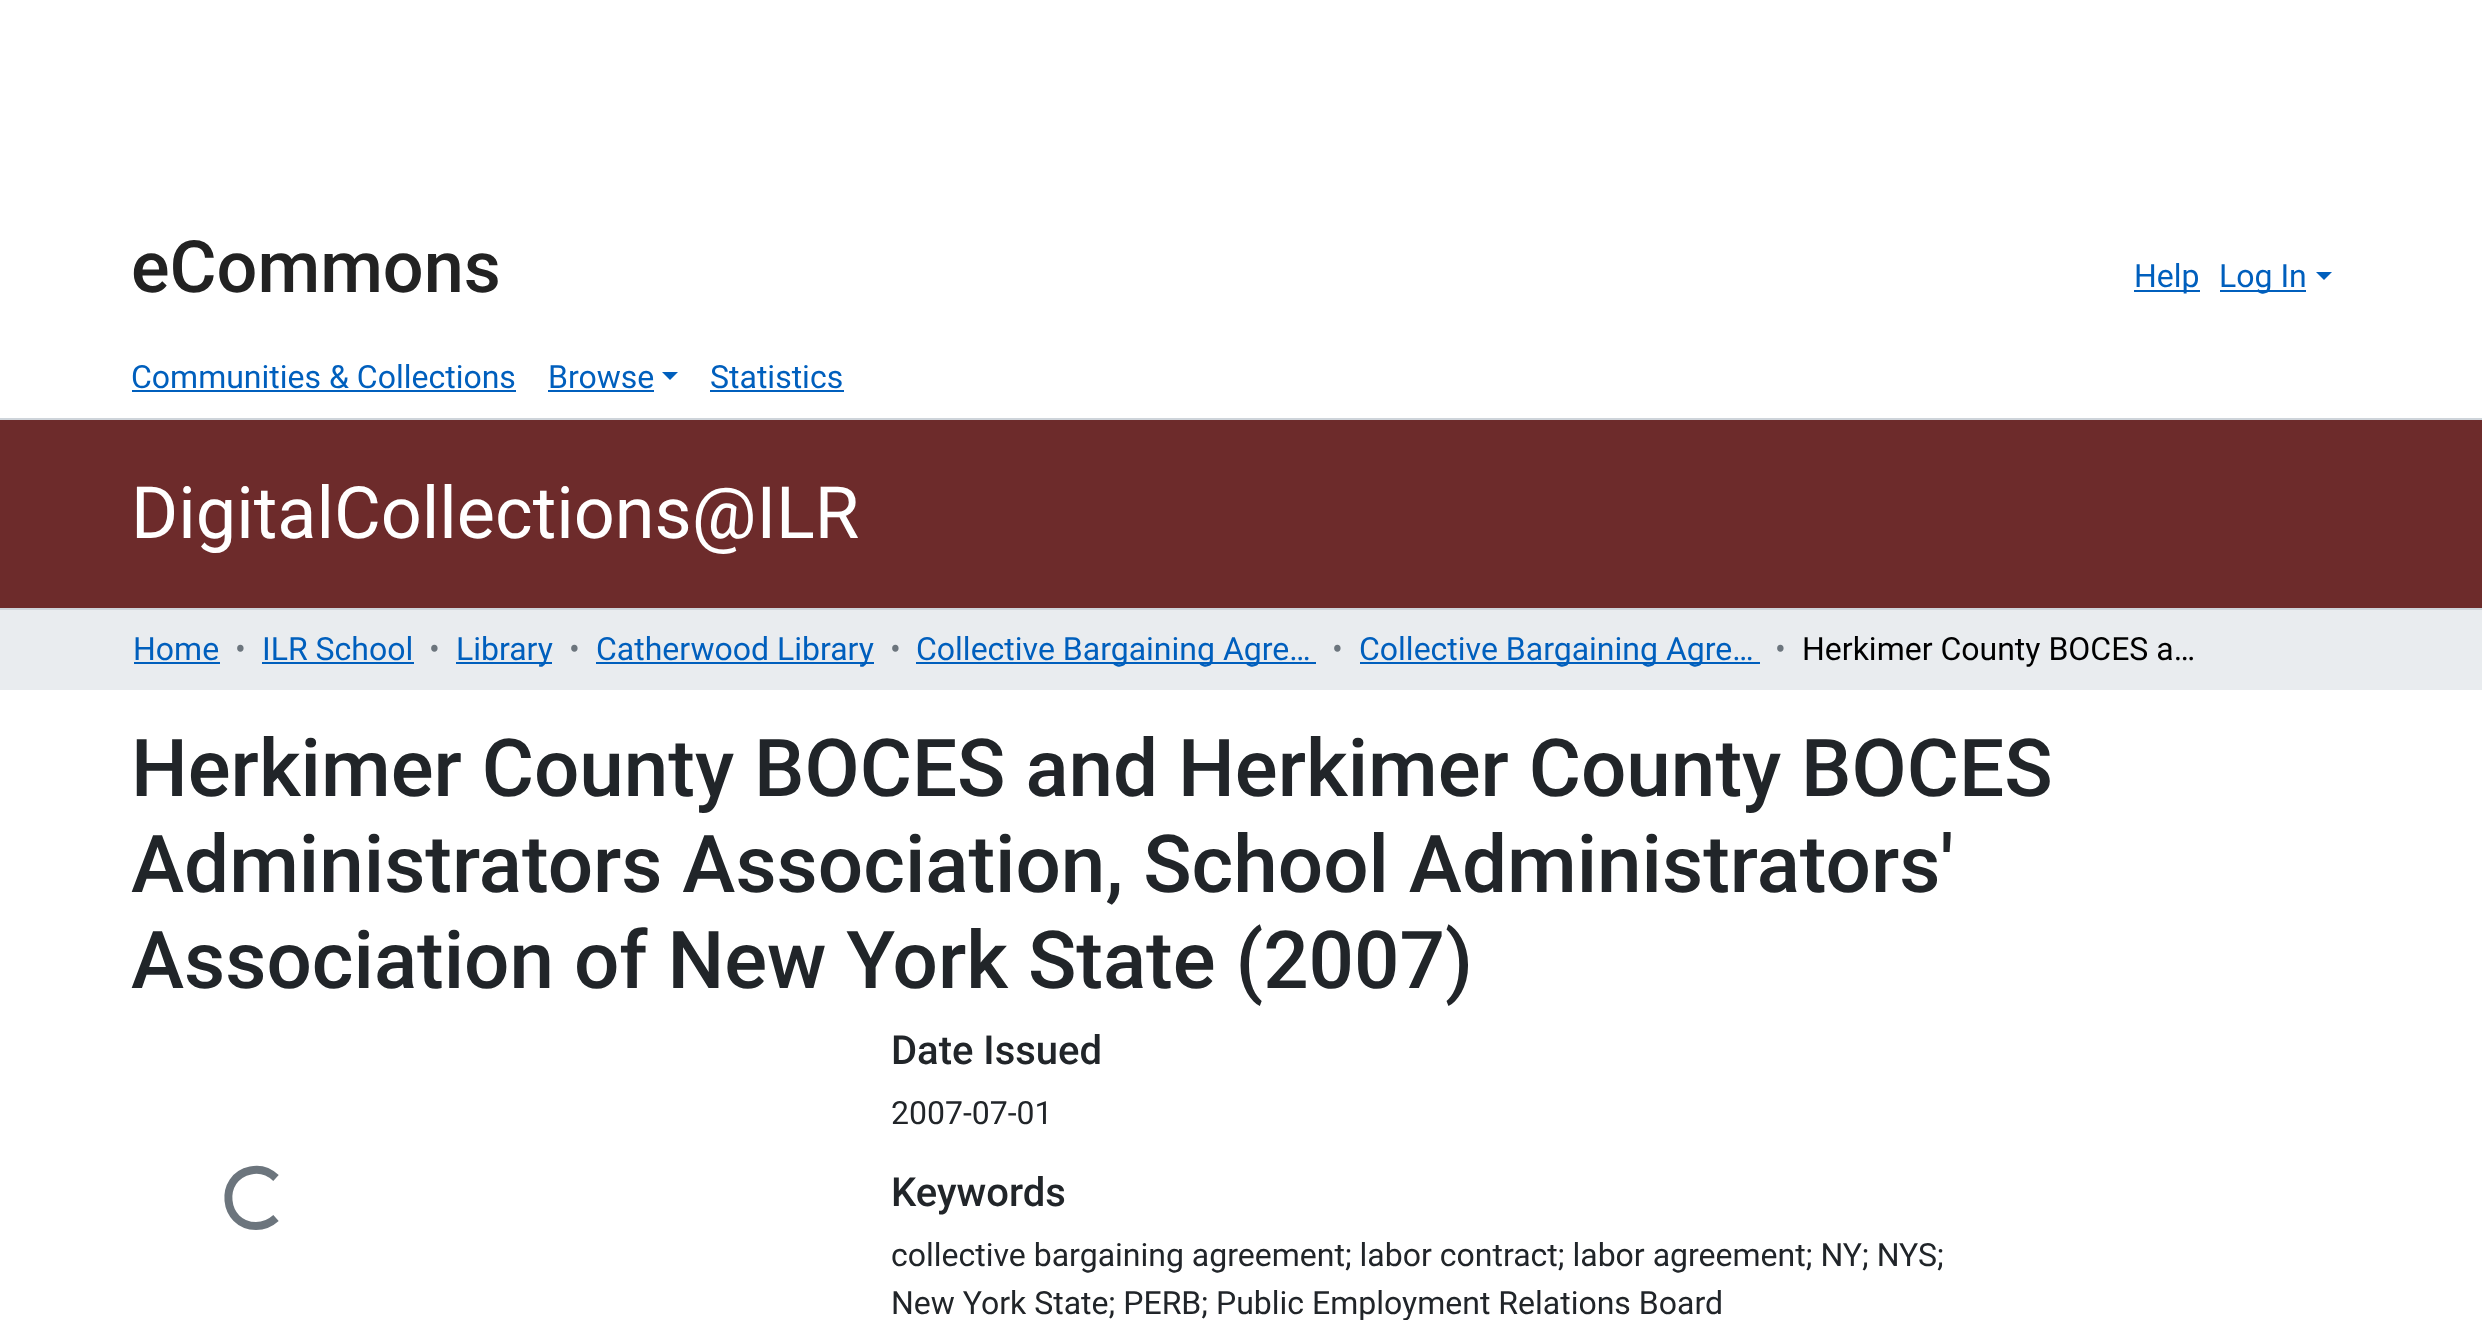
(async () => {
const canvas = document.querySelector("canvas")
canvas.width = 2482
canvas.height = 1320
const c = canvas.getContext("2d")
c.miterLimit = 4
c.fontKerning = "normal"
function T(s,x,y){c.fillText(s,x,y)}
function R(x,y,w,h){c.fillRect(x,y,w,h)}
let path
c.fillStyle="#fff"
R(0,0,2482,1320)
c.fillStyle="#ced4da"
R(0,608,2482,2)
c.font="500 72px Roboto"
c.fillStyle="#222"
T("eCommons",131,292)
c.fillStyle="#005fbd"
R(2134,290,66,2)
c.font="32px Roboto"
T("Help",2134,287)
R(2220,290,86,2)
T("Log In",2219,287)
path = new Path2D("M2316 272h16l-8 8z")
c.fill(path)
c.fillStyle="#ced4da"
R(0,418,2482,2)
c.fillStyle="#005fbd"
T("Communities & Collections",131,388)
R(132,390,384,2)
T("Browse",548,388)
R(548,390,106,2)
path = new Path2D("M662 372h16l-8 8z")
c.fill(path)
T("Statistics",710,388)
R(710,390,134,2)
c.fillStyle="#6d2b2b"
R(0,420,2482,188)
c.font="72px Roboto"
c.fillStyle="#fff"
T("DigitalCollections@ILR",131,538)
c.fillStyle="#e9ecef"
R(0,610,2482,80)
c.font="32px Roboto"
c.fillStyle="#005fbd"
T("Home",133,660)
R(134,662,86,2)
c.fillStyle="#6c757d"
T("•",235,660)
c.fillStyle="#005fbd"
T("ILR School",262,660)
R(262,662,152,2)
c.fillStyle="#6c757d"
T("•",429,660)
c.fillStyle="#005fbd"
R(456,662,96,2)
T("Library",456,660)
c.fillStyle="#6c757d"
T("•",569,660)
c.fillStyle="#005fbd"
R(596,662,278,2)
T("Catherwood Library",596,660)
c.fillStyle="#6c757d"
T("•",890,660)
c.fillStyle="#005fbd"
R(916,662,400,2)
T("Collective Bargaining Agre…",916,660)
c.fillStyle="#6c757d"
T("•",1332,660)
c.fillStyle="#005fbd"
R(1360,662,400,2)
T("Collective Bargaining Agre…",1359,660)
c.fillStyle="#6c757d"
T("•",1775,660)
c.fillStyle="#000"
T("Herkimer County BOCES a…",1802,660)
c.font="500 80px Roboto"
c.fillStyle="#212529"
T("Herkimer County BOCES and Herkimer County BOCES",131,796)
T("Administrators Association, School Administrators'",131,892)
T("Association of New York State (2007)",131,988)
path = new Path2D("M276 1218c-5.5 5-12.5 8-20 8c-33.5 0-38-49-5.5-55.5c9-2 18.5 1 25.5 7.5")
c.strokeStyle="#6c757d"
c.lineWidth=8
c.stroke(path)
c.font="500 40px Roboto"
T("Date Issued",891,1064)
c.font="32px Roboto"
T("2007-07-01",891,1124)
c.font="500 40px Roboto"
T("Keywords",891,1206)
c.font="32px Roboto"
T("collective bargaining agreement; labor contract; labor agreement; NY; NYS;",891,1266)
T("New York State; PERB; Public Employment Relations Board",891,1314)
})()
